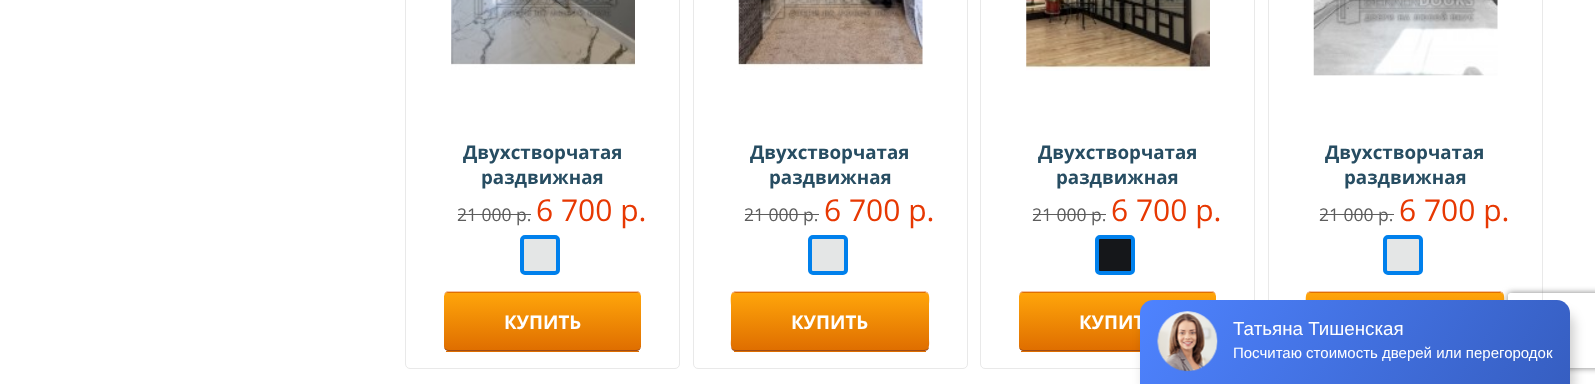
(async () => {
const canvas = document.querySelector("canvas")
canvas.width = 1595
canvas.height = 384
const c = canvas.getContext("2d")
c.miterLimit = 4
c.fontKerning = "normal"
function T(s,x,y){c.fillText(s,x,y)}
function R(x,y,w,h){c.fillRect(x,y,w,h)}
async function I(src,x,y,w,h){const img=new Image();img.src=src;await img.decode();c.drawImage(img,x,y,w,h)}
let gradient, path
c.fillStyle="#fff"
R(0,0,1595,384)
c.beginPath()
c.roundRect(405.5,-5.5,274,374,4.5)
c.strokeStyle="#e9e9e9"
c.stroke()
await I("1.png",451,0,184,70)
c.font="bold 18.75px Open Sans"
c.fillStyle="#274d62"
T("Двухстворчатая",463,159)
T("раздвижная",481,184)
c.font="17.5px Open Sans"
c.fillStyle="#5d5d5d"
T("21 000 р.",457,221)
R(458,214,73,1)
c.font="30px Open Sans"
c.fillStyle="#e73802"
T("6 700 р.",536,221)
c.fillStyle="#e4e6e6"
c.beginPath()
c.roundRect(522,237,36,36,3)
c.fill()
c.strokeStyle="#0080ec"
c.lineWidth=4
c.stroke()
c.fillStyle="#df6e00"
R(446,351,193,1)
gradient = c.createLinearGradient(543,235,543,293)
gradient.addColorStop(0,"#ffa50a")
gradient.addColorStop(1,"#df6e00")
c.fillStyle = gradient
path = new Path2D("M449 291h188c1 0 2 1 3 2h-195c1-1 2-2 4-2z")
c.fill(path)
gradient = c.createLinearGradient(543,293,543,350)
gradient.addColorStop(0,"#ffa50a")
gradient.addColorStop(1,"#df6e00")
c.fillStyle = gradient
path = new Path2D("M444 296v50c0 2 1 3 2 4h193l2-3v-51l-1-3h-195z")
c.fill(path)
c.fillStyle="#f3c2a4"
path = new Path2D("M449 292h187c3 0 5 2 5 4c0-3-2-5-5-5h-187c-3 0-5 2-5 5c0-2 2-4 5-4z")
c.fill(path)
c.fillStyle="#9e4d19"
path = new Path2D("M636 351h-187c-3 0-5-2-5-5c0 2 2 4 5 4h187c3 0 5-2 5-4c0 3-2 5-5 5z")
c.fill(path)
c.font="bold 18.75px Open Sans"
c.fillStyle="#fff"
T("КУПИТЬ",504,329)
c.beginPath()
c.roundRect(693.5,-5.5,274,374,4.5)
c.strokeStyle="#e9e9e9"
c.lineWidth=1
c.stroke()
await I("2.png",738,0,185,70)
c.fillStyle="#274d62"
T("Двухстворчатая",750,159)
T("раздвижная",769,184)
c.font="17.5px Open Sans"
c.fillStyle="#5d5d5d"
T("21 000 р.",744,221)
R(745,214,74,1)
c.font="30px Open Sans"
c.fillStyle="#e73802"
T("6 700 р.",824,221)
c.fillStyle="#e4e6e6"
c.beginPath()
c.roundRect(810,237,36,36,3)
c.fill()
c.strokeStyle="#0080ec"
c.lineWidth=4
c.stroke()
c.fillStyle="#df6e00"
R(734,351,192,1)
gradient = c.createLinearGradient(830,235,830,293)
gradient.addColorStop(0,"#ffa50a")
gradient.addColorStop(1,"#df6e00")
c.fillStyle = gradient
path = new Path2D("M736 291c-1 0-3 1-4 2h196c-1-1-3-2-4-2z")
c.fill(path)
gradient = c.createLinearGradient(830,293,830,350)
gradient.addColorStop(0,"#ffa50a")
gradient.addColorStop(1,"#df6e00")
c.fillStyle = gradient
path = new Path2D("M733 350c-3-3-2-8-2-11v-34c0-2-1-9 1-12h196c2 3 1 10 1 12v34c0 3 1 8-2 11z")
c.fill(path)
c.fillStyle="#f3c2a4"
path = new Path2D("M736 292h189l3 2c-1-2-2-3-4-3h-188c-2 0-3 1-4 3c1-1 2-2 4-2z")
c.fill(path)
c.fillStyle="#9e4d19"
path = new Path2D("M731 348c1 2 2 3 4 3h189c2 0 5-1 5-4c-1 2-3 3-5 3h-189l-3-1l-1-2z")
c.fill(path)
c.font="bold 18.75px Open Sans"
c.fillStyle="#fff"
T("КУПИТЬ",791,329)
c.beginPath()
c.roundRect(980.5,-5.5,274,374,4.5)
c.strokeStyle="#e9e9e9"
c.lineWidth=1
c.stroke()
await I("3.png",1026,0,184,71)
c.fillStyle="#274d62"
T("Двухстворчатая",1038,159)
T("раздвижная",1056,184)
c.font="17.5px Open Sans"
c.fillStyle="#5d5d5d"
T("21 000 р.",1032,221)
R(1033,214,73,1)
c.font="30px Open Sans"
c.fillStyle="#e73802"
T("6 700 р.",1111,221)
c.fillStyle="#15171a"
c.beginPath()
c.roundRect(1097,237,36,36,3)
c.fill()
c.strokeStyle="#0080ec"
c.lineWidth=4
c.stroke()
c.fillStyle="#df6e00"
R(1021,351,119,1)
gradient = c.createLinearGradient(1118,235,1118,293)
gradient.addColorStop(0,"#ffa50a")
gradient.addColorStop(1,"#df6e00")
c.fillStyle = gradient
path = new Path2D("M1024 291h188c1 0 2 1 3 2h-195c1-1 2-2 4-2z")
c.fill(path)
gradient = c.createLinearGradient(1118,293,1118,350)
gradient.addColorStop(0,"#ffa50a")
gradient.addColorStop(1,"#df6e00")
c.fillStyle = gradient
path = new Path2D("M1019 296v50c0 2 1 3 2 4h193l2-3v-51l-1-3h-195z")
c.fill(path)
c.fillStyle="#f3c2a4"
path = new Path2D("M1024 292h187c3 0 5 2 5 4c0-3-2-5-5-5h-187c-3 0-5 2-5 5c0-2 2-4 5-4z")
c.fill(path)
c.fillStyle="#9e4d19"
path = new Path2D("M1211 351h-187c-3 0-5-2-5-5c0 2 2 4 5 4h187c3 0 5-2 5-4c0 3-2 5-5 5z")
c.fill(path)
c.font="bold 18.75px Open Sans"
c.fillStyle="#fff"
T("КУПИТ",1079,329)
c.strokeStyle="#e9e9e9"
c.lineWidth=1
c.strokeRect(1268.5,-.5,274,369)
await I("4.png",1313,0,185,76)
c.fillStyle="#274d62"
T("Двухстворчатая",1325,159)
T("раздвижная",1344,184)
c.font="17.5px Open Sans"
c.fillStyle="#5d5d5d"
T("21 000 р.",1319,221)
R(1320,214,74,1)
c.font="30px Open Sans"
c.fillStyle="#e73802"
T("6 700 р.",1399,221)
c.fillStyle="#e4e6e6"
c.beginPath()
c.roundRect(1385,237,36,36,3)
c.fill()
c.strokeStyle="#0080ec"
c.lineWidth=4
c.stroke()
gradient = c.createLinearGradient(1405,235,1405,293)
gradient.addColorStop(0,"#ffa50a")
gradient.addColorStop(1,"#df6e00")
c.fillStyle = gradient
path = new Path2D("M1311 291c-1 0-3 1-4 2h196c-1-1-3-2-4-2z")
c.fill(path)
gradient = c.createLinearGradient(1405,293,1405,350)
gradient.addColorStop(0,"#ffa50a")
gradient.addColorStop(1,"#df6e00")
c.fillStyle = gradient
path = new Path2D("M1308 350c-3-3-2-8-2-11v-34c0-2-1-9 1-12h196c2 3 1 10 1 12v34c0 3 1 8-2 11z")
c.fill(path)
c.fillStyle="#f3c2a4"
path = new Path2D("M1311 292h189l3 2c-1-2-2-3-4-3h-188c-2 0-3 1-4 3c1-1 2-2 4-2z")
c.fill(path)
c.save()
path = new Path2D("M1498 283h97v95h-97zm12.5 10h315c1.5 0 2.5 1 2.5 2.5v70c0 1.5-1 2.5-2.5 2.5h-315c-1.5 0-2.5-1-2.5-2.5v-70c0-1.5 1-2.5 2.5-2.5z")
c.clip(path,"evenodd")
c.fillStyle="#808080"
c.filter="blur(3px)"
c.beginPath()
c.roundRect(1508,293,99,75,2.5)
c.fill()
c.filter="none"
c.restore()
c.fillStyle="#00000033"
c.filter="blur(6px)"
c.beginPath()
c.roundRect(1144,313,430,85,13)
c.fill()
c.filter="none"
gradient = c.createLinearGradient(1526,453,1184,232)
gradient.addColorStop(0,"#365ec1")
gradient.addColorStop(1,"#4e83ff")
c.fillStyle = gradient
path = new Path2D("M1153 300h404c7 0 13 6 13 13v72h-430v-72c0-7 6-13 13-13z")
c.fill(path)
await I("5.png",1157,311,61,61)
c.font="18.75px Liberation Sans"
c.fillStyle="#fff"
T("Татьяна Тишенская",1233,335)
c.font="15px Liberation Sans"
T("Посчитаю стоимость дверей или перегородок",1233,358)
})()
